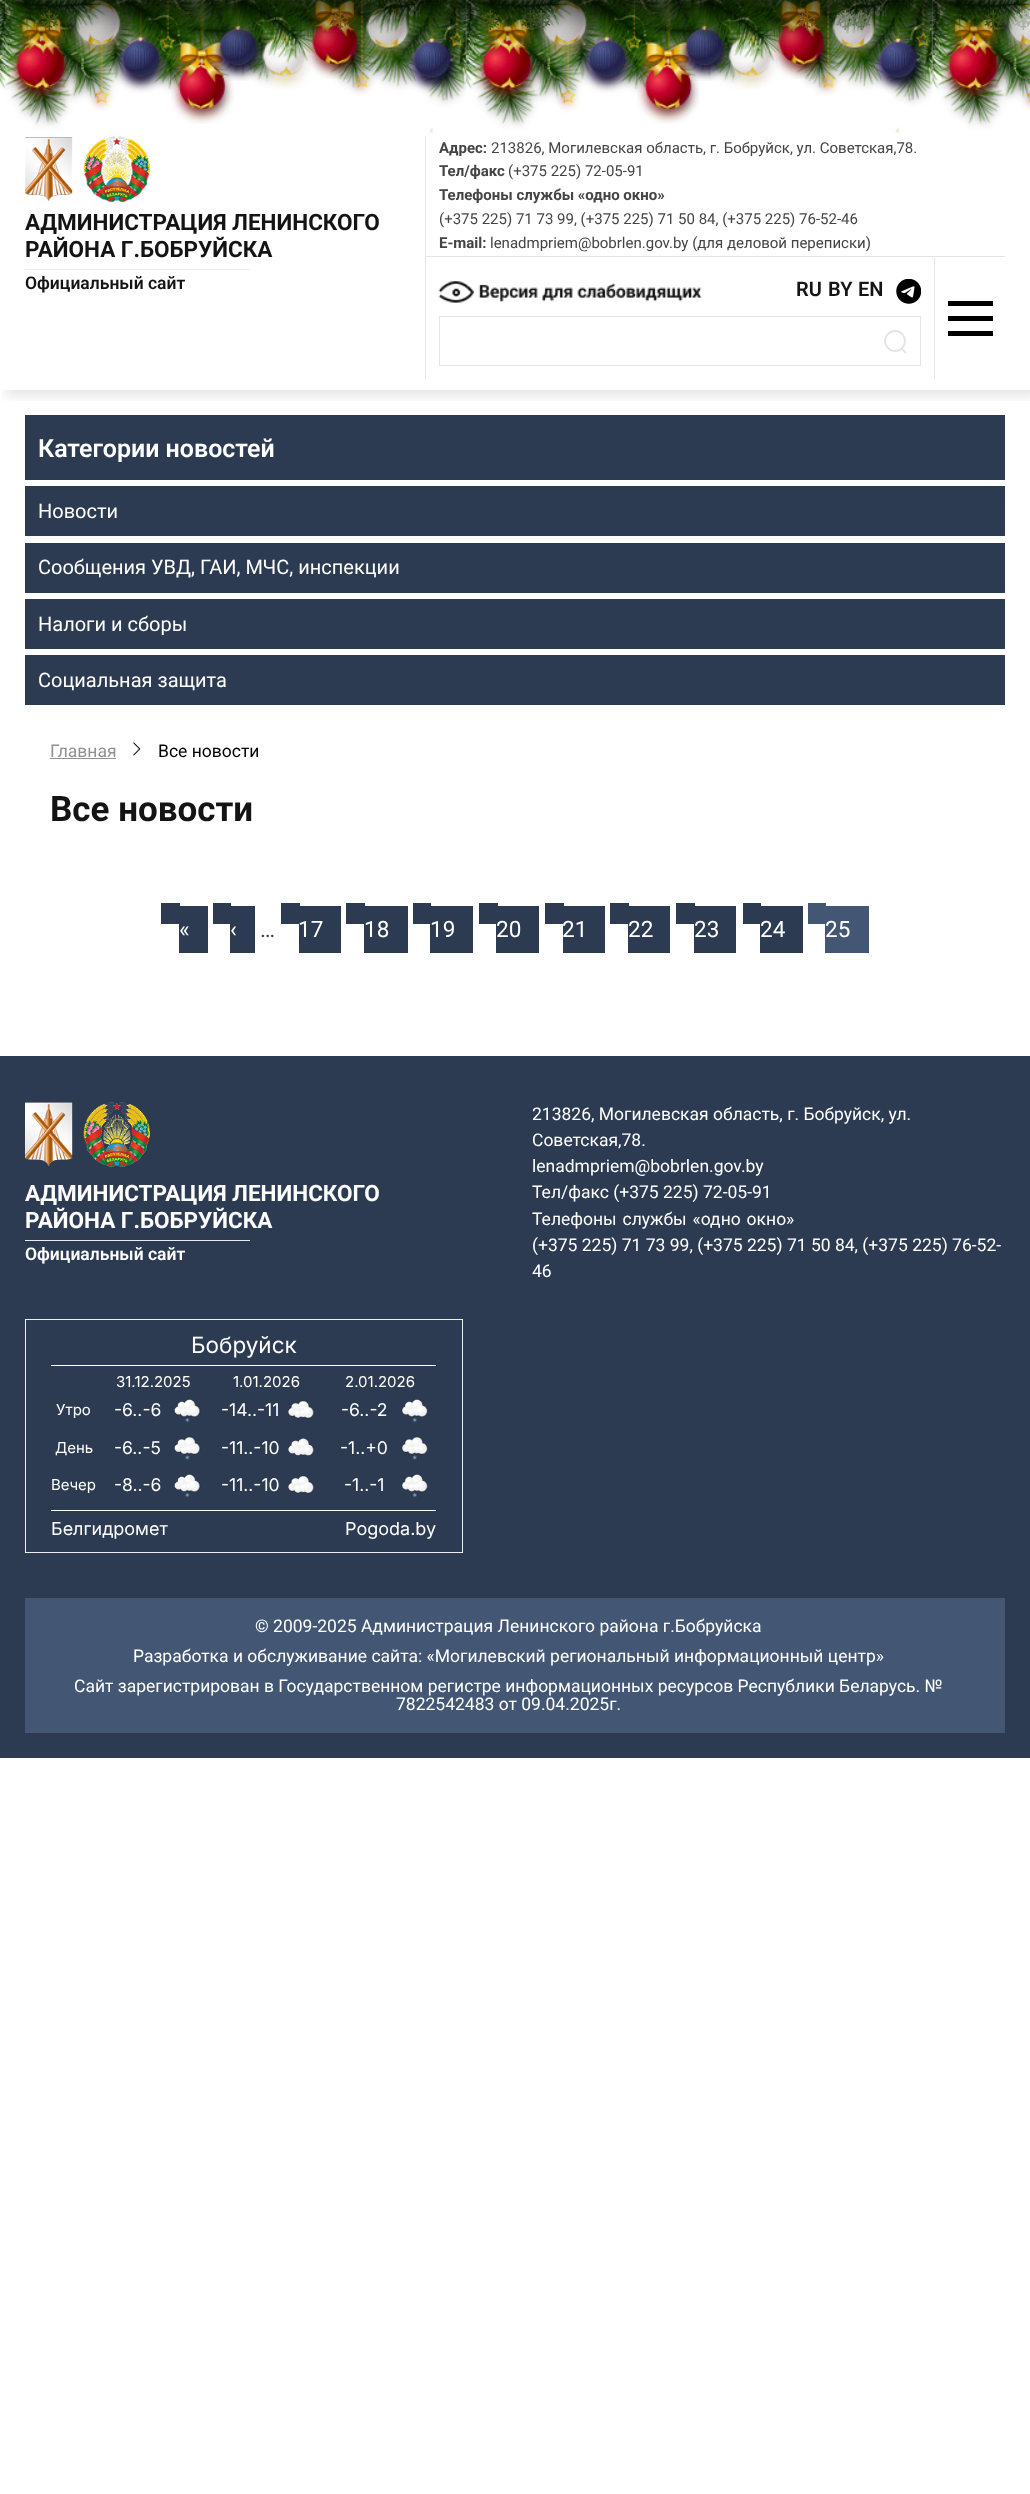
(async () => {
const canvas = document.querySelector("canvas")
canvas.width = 1030
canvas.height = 2494
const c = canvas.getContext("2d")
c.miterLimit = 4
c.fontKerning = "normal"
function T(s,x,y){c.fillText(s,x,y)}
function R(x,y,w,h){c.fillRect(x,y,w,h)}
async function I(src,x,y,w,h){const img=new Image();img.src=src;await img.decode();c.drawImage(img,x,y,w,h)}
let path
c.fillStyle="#fff"
R(0,0,1030,2494)
await I("1.png",0,0,1030,133)
await I("3.png",8,0,65,102)
await I("2.png",0,0,32,89)
await I("5.png",67,0,62,58)
await I("4.png",31,0,76,34)
await I("6.png",171,0,63,124)
await I("7.png",211,0,54,81)
await I("13.png",255,7,56,83)
await I("8.png",221,0,36,38)
await I("10.png",304,0,61,79)
await I("9.png",256,0,63,63)
await I("11.png",359,0,57,61)
await I("12.png",113,11,54,82)
await I("16.png",405,12,55,82)
await I("14.png",361,0,98,35)
await I("15.png",458,0,9,86)
await I("18.png",474,0,65,102)
await I("17.png",466,0,32,89)
await I("20.png",534,0,61,58)
await I("19.png",497,0,77,33)
await I("21.png",637,0,63,124)
await I("22.png",677,0,54,81)
await I("28.png",721,7,57,83)
await I("23.png",687,0,36,39)
await I("25.png",771,0,60,79)
await I("24.png",722,0,63,63)
await I("26.png",825,0,58,61)
await I("27.png",580,11,54,82)
await I("31.png",871,12,55,82)
await I("29.png",827,0,98,35)
await I("30.png",925,0,8,86)
await I("33.png",941,0,65,102)
await I("32.png",932,0,32,89)
await I("35.png",1000,0,30,58)
await I("34.png",963,0,67,33)
c.fillStyle="#000000bf"
c.filter="blur(19px)"
c.beginPath()
c.rect(0,-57,1030,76)
c.fill()
c.filter="none"
c.font="27px DejaVu Sans"
c.fillStyle="#485313"
T("❄",38,30)
c.fillStyle="#795319"
T("❄",329,30)
c.fillStyle="#485313"
T("❄",479,30)
c.fillStyle="#495b3e"
T("❄",530,30)
c.fillStyle="#344617"
T("❄",519,30)
c.fillStyle="#795319"
T("❄",796,30)
c.fillStyle="#7f8875"
T("❄",834,30)
c.fillStyle="#657258"
T("❄",850,30)
c.fillStyle="#3c4c16"
T("❄",982,30)
c.fillStyle="#abb3a5"
T("❄",1012,30)
c.save()
c.beginPath()
c.rect(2,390,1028,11)
c.clip()
c.fillStyle="#0000001a"
c.filter="blur(6px)"
c.beginPath()
c.rect(6,131,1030,265)
c.fill()
c.filter="none"
c.restore()
await I("36.png",25,136,125,67)
c.font="bold 22.5px Roboto"
c.fillStyle="#141414"
T("АДМИНИСТРАЦИЯ ЛЕНИНСКОГО",25,230)
T("РАЙОНА Г.БОБРУЙСКА",25,257)
c.fillStyle="#ececec"
R(25,269,225,1)
c.font="600 17.5px Roboto"
c.fillStyle="#141414"
T("Официальный сайт",25,289)
c.fillStyle="#e5e5e5"
R(425,136,1,243)
R(426,256,579,1)
c.font="bold 15px Roboto"
c.fillStyle="#444"
T("Адрес:",439,153)
c.font="15px Roboto"
T("213826, Могилевская область, г. Бобруйск, ул. Советская,78.",491,153)
c.font="bold 15px Roboto"
T("Тел/факс",439,176)
c.font="15px Roboto"
T("(+375 225) 72-05-91",508,176)
c.font="bold 15px Roboto"
T("Телефоны службы «одно окно»",439,200)
c.font="15px Roboto"
T("(+375 225) 71 73 99, (+375 225) 71 50 84, (+375 225) 76-52-46",439,224)
c.font="bold 15px Roboto"
T("E-mail:",439,248)
c.font="15px Roboto"
T("lenadmpriem@bobrlen.gov.by (для деловой переписки)",490,248)
c.fillStyle="#e5e5e5"
R(934,258,1,121)
await I("37.png",438,281,264,22)
c.font="600 20px Roboto"
c.fillStyle="#141414"
T("RU",796,296)
T("BY",828,296)
T("EN",858,296)
await I("38.png",896,279,25,25)
c.fillStyle="#e5e5e5"
R(439,316,482,1)
R(439,365,431,1)
R(439,316,1,50)
c.beginPath()
c.arc(895,341,10,0,7)
c.strokeStyle="#e5e5e5"
c.lineWidth=1.9
c.stroke()
path = new Path2D("M901.5 348.5l4 4")
c.lineCap="square"
c.lineJoin="round"
c.stroke(path)
R(920,316,1,50)
R(870,365,51,1)
c.fillStyle="#000"
R(948,301,45,5)
R(948,316,45,5)
R(948,331,45,5)
c.fillStyle="#2c3b52"
R(25,415,980,65)
c.font="600 25px Roboto"
c.fillStyle="#fff"
T("Категории новостей",38,457)
c.fillStyle="#2c3b52"
R(25,486,980,50)
c.font="20px Roboto"
c.fillStyle="#fff"
T("Новости",38,518)
c.fillStyle="#2c3b52"
R(25,543,980,50)
c.fillStyle="#fff"
T("Сообщения УВД, ГАИ, МЧС, инспекции",38,574)
c.fillStyle="#2c3b52"
R(25,599,980,50)
c.fillStyle="#fff"
T("Налоги и сборы",38,631)
c.fillStyle="#2c3b52"
R(25,655,980,50)
c.fillStyle="#fff"
T("Социальная защита",38,687)
c.font="17.5px Roboto"
c.fillStyle="#919191"
T("Главная",50,757)
R(50,758,66,1)
await I("39.png",133,742,8,14)
c.fillStyle="#000"
T("Все новости",158,757)
c.font="bold 35px Roboto"
c.fillStyle="#141414"
T("Все новости",50,821)
c.fillStyle="#2c3b52"
R(161,903,19,21)
R(179,906,29,47)
c.font="22.5px Roboto"
c.fillStyle="#fff"
T("«",179,937)
c.fillStyle="#2c3b52"
R(213,903,18,21)
R(230,906,25,47)
c.fillStyle="#fff"
T("‹",230,937)
c.fillStyle="#444"
T("…",260,937)
c.fillStyle="#2c3b52"
R(281,903,19,21)
R(299,906,42,47)
c.fillStyle="#fff"
T("17",298,937)
c.fillStyle="#2c3b52"
R(346,903,19,21)
R(364,906,44,47)
c.fillStyle="#fff"
T("18",364,937)
c.fillStyle="#2c3b52"
R(413,903,18,21)
R(430,906,43,47)
c.fillStyle="#fff"
T("19",430,937)
c.fillStyle="#2c3b52"
R(479,903,19,21)
R(496,906,43,47)
c.fillStyle="#fff"
T("20",496,937)
c.fillStyle="#2c3b52"
R(545,903,19,21)
R(563,906,42,47)
c.fillStyle="#fff"
T("21",562,937)
c.fillStyle="#2c3b52"
R(610,903,19,21)
R(628,906,42,47)
c.fillStyle="#fff"
T("22",628,937)
c.fillStyle="#2c3b52"
R(676,903,19,21)
R(694,906,42,47)
c.fillStyle="#fff"
T("23",694,937)
c.fillStyle="#2c3b52"
R(743,903,18,21)
R(760,906,43,47)
c.fillStyle="#fff"
T("24",760,937)
c.fillStyle="#435774"
R(808,903,18,21)
R(825,906,44,47)
c.fillStyle="#fff"
T("25",825,937)
c.fillStyle="#2c3b52"
R(0,1056,1030,702)
await I("40.png",25,1101,125,67)
c.font="bold 22.5px Roboto"
c.fillStyle="#fff"
T("АДМИНИСТРАЦИЯ ЛЕНИНСКОГО",25,1201)
T("РАЙОНА Г.БОБРУЙСКА",25,1228)
c.fillStyle="#ececec"
R(25,1240,225,1)
c.font="600 17.5px Roboto"
c.fillStyle="#fff"
T("Официальный сайт",25,1260)
c.font="17.5px Roboto"
T("213826, Могилевская область, г. Бобруйск, ул.",532,1120)
T("Советская,78.",532,1146)
T("lenadmpriem@bobrlen.gov.by",532,1172)
T("Тел/факс (+375 225) 72-05-91",532,1198)
c.wordSpacing="1.5px"
T("Телефоны службы «одно окно»",532,1225)
c.wordSpacing="0px"
T("(+375 225) 71 73 99, (+375 225) 71 50 84, (+375 225) 76-52-",532,1251)
T("46",532,1277)
c.strokeStyle="#eee"
c.lineWidth=1
c.lineJoin="miter"
c.strokeRect(25.5,1319.5,437,233)
c.font="22.5px Inter"
T("Бобруйск",191,1353)
R(51,1365,385,1)
c.font="15px Inter"
T("31.12.2025",116,1387)
T("1.01.2026",233,1387)
T("2.01.2026",345,1387)
T("Утро",56,1415)
c.font="17.5px Inter"
T("-6..-6",114,1416)
await I("41.png",174,1399,27,24)
T("-14..-11",221,1416)
await I("42.png",288,1400,26,19)
T("-6..-2",341,1416)
await I("43.png",401,1399,27,24)
c.font="15px Inter"
T("День",55,1453)
c.font="17.5px Inter"
T("-6..-5",114,1454)
await I("44.png",174,1436,27,24)
T("-11..-10",221,1454)
await I("45.png",288,1438,26,18)
T("-1..+0",340,1454)
await I("46.png",401,1436,27,24)
c.font="15px Inter"
T("Вечер",51,1490)
c.font="17.5px Inter"
T("-8..-6",114,1491)
await I("41.png",174,1474,27,24)
T("-11..-10",221,1491)
await I("42.png",288,1475,26,19)
T("-1..-1",344,1491)
await I("43.png",401,1474,27,24)
R(51,1510,385,1)
c.font="18px Inter"
T("Белгидромет",51,1535)
T("Pogoda.by",345,1535)
c.fillStyle="#435774"
R(25,1598,980,135)
c.font="17.5px Roboto"
c.fillStyle="#fff"
T("© 2009-2025 Администрация Ленинского района г.Бобруйска",255,1632)
T("Разработка и обслуживание сайта: «Могилевский региональный информационный центр»",133,1662)
T("Сайт зарегистрирован в Государственном регистре информационных ресурсов Республики Беларусь. №",74,1692)
T("7822542483 от 09.04.2025г.",396,1710)
})()
